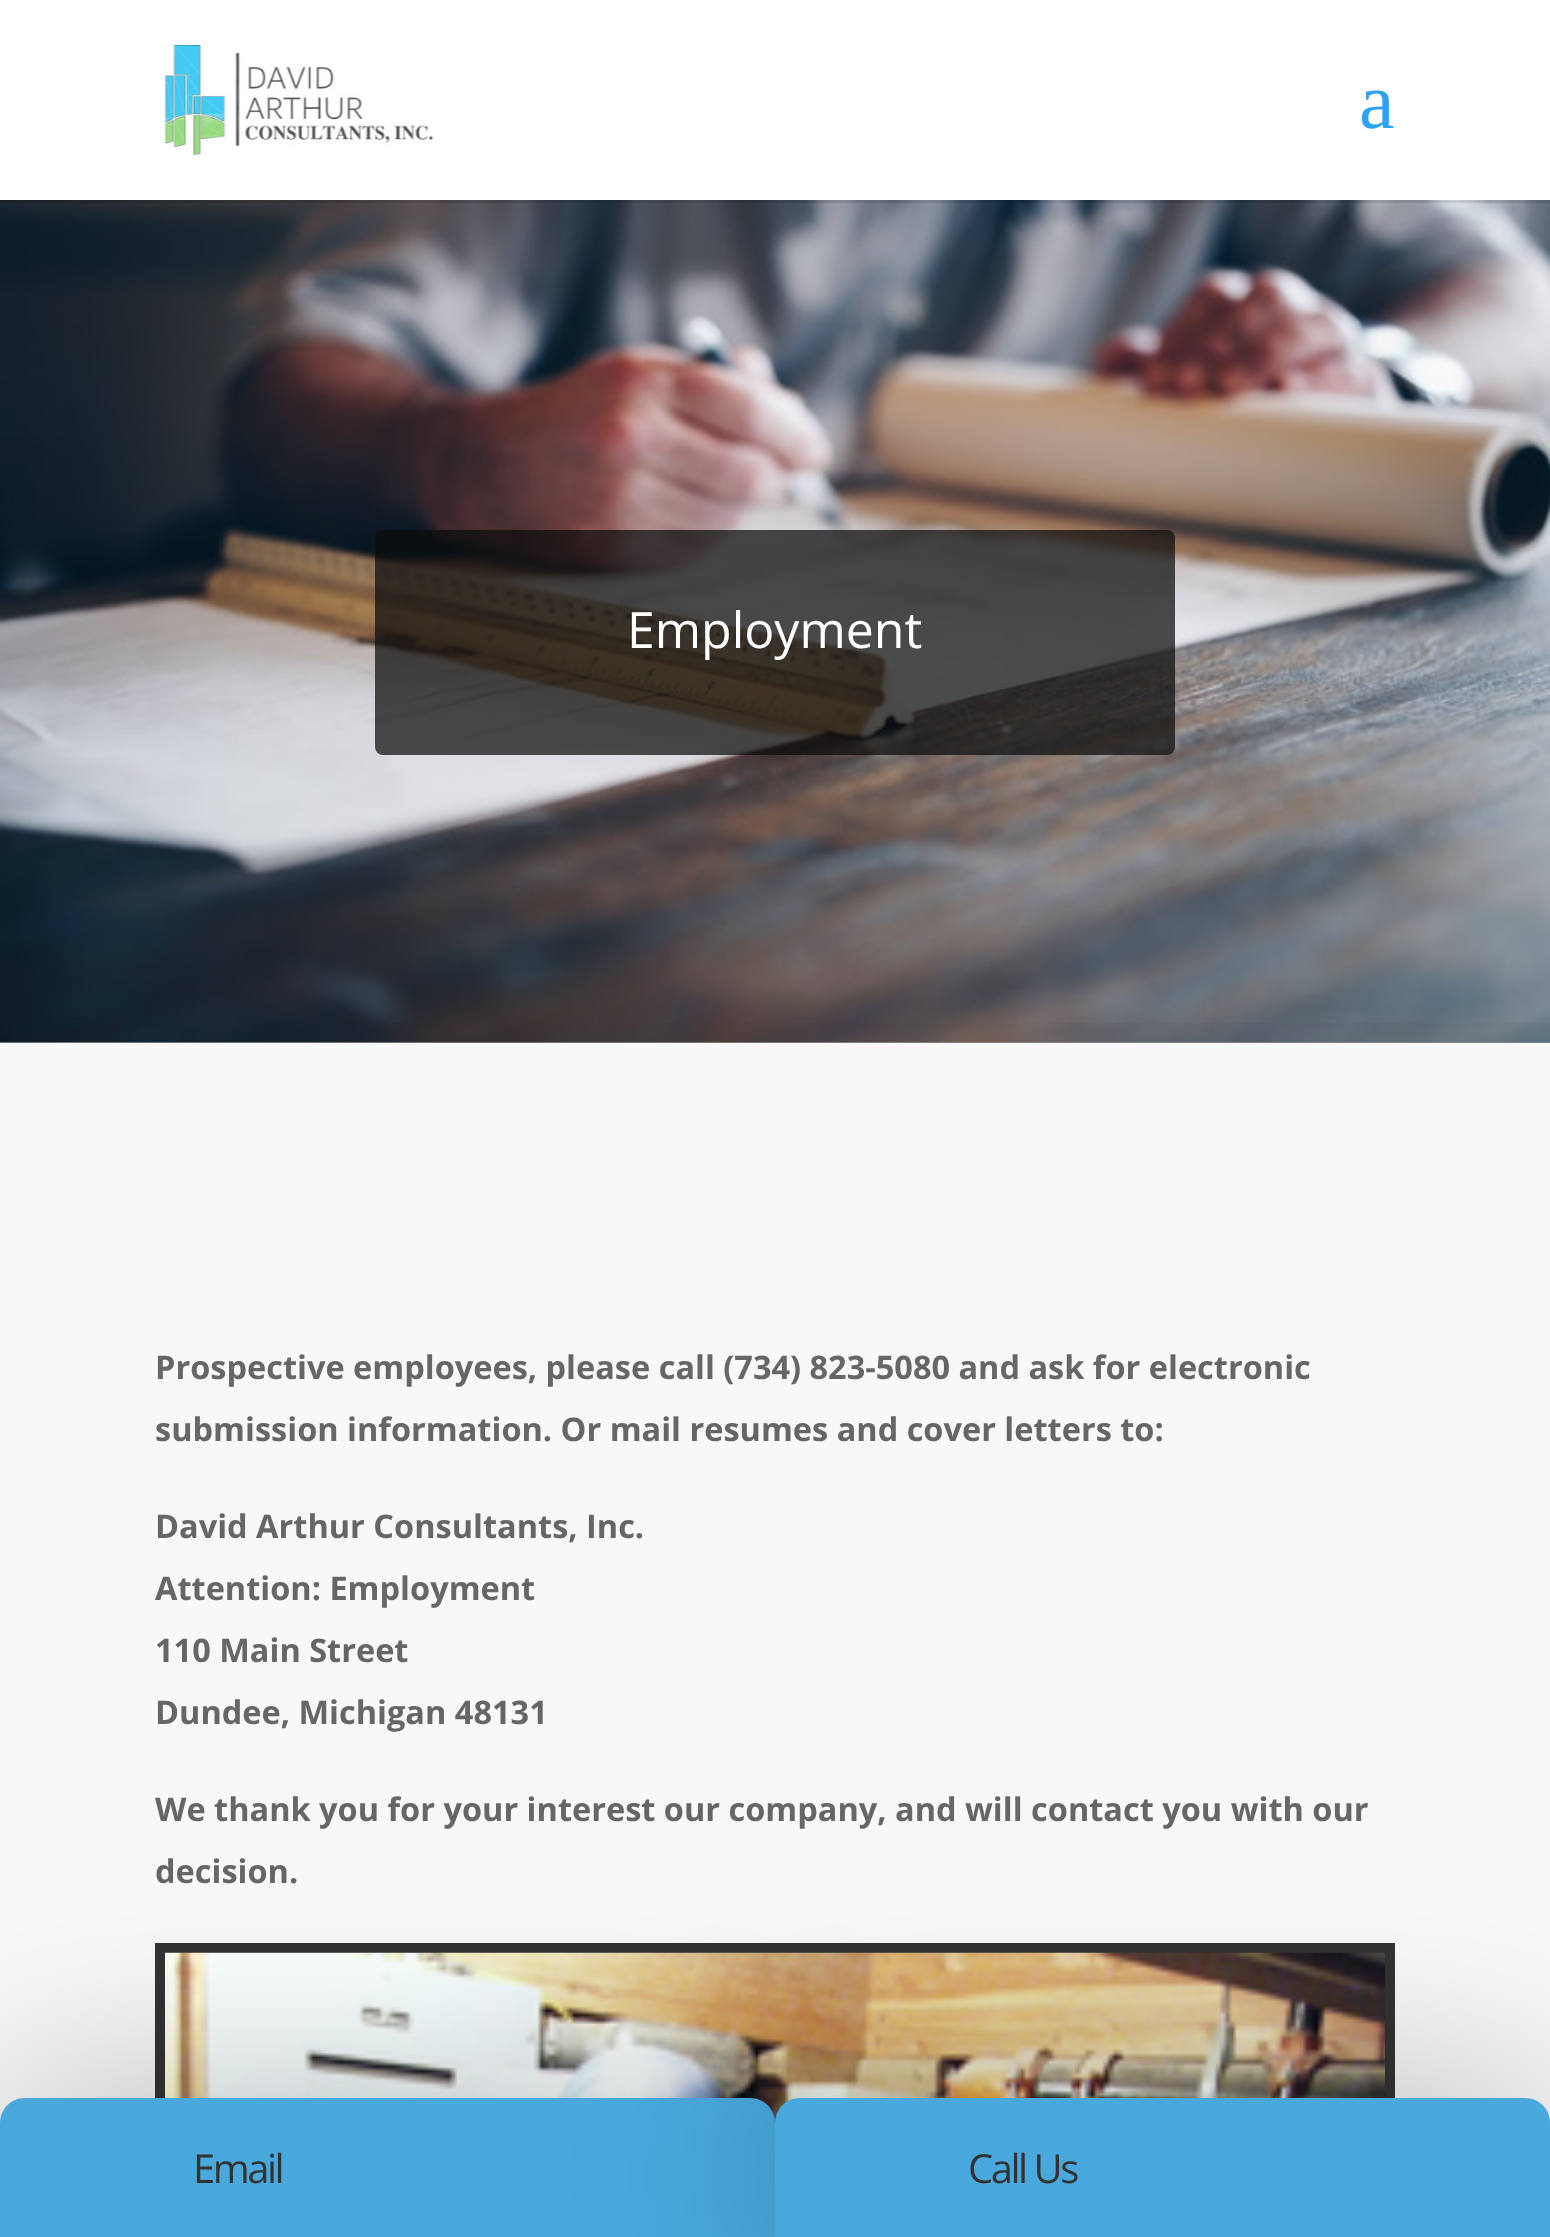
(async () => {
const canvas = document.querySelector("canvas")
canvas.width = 1550
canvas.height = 2237
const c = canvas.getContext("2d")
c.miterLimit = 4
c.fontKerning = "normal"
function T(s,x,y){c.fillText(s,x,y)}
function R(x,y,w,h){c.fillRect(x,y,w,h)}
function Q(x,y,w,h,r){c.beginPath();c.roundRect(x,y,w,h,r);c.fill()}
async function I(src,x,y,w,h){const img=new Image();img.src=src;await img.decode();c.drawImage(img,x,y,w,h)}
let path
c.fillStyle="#fff"
R(0,0,1550,2237)
c.fillStyle="#8f8f8f"
R(0,1042,1550,1)
await I("2.png",0,200,1550,843)
c.fillStyle="#0000001a"
R(0,200,1550,3)
await I("1.png",164,45,269,110)
c.font="80px Liberation Serif"
c.fillStyle="#2ea3f2"
T("a",1359,128)
c.fillStyle="#0c0c0cb8"
Q(375,530,800,225,8)
c.font="50px Open Sans"
c.fillStyle="#fff"
T("Employment",627,648)
c.fillStyle="#14141408"
R(0,1023,1550,1100)
c.font="bold 32.5px Open Sans"
c.fillStyle="#666"
T("Prospective employees, please call (734) 823-5080 and ask for electronic",155,1379)
T("submission information. Or mail resumes and cover letters to:",155,1441)
T("David Arthur Consultants, Inc.",155,1538)
T("Attention: Employment",155,1600)
T("110 Main Street",155,1662)
T("Dundee, Michigan 48131",155,1724)
T("We thank you for your interest our company, and will contact you with our",155,1821)
T("decision.",155,1883)
c.strokeStyle="#333"
c.lineWidth=10
c.strokeRect(160,1948,1230,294)
await I("3.png",165,1952,1220,171)
c.fillStyle="#0000004d"
c.filter="blur(100px)"
c.beginPath()
c.roundRect(0,2103,775,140,25)
c.fill()
c.filter="none"
c.fillStyle="#49a9dd"
path = new Path2D("M25 2098h725c14 0 25 11 25 25v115h-775v-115c0-14 11-25 25-25z")
c.fill(path)
c.letterSpacing="-2.5px"
c.font="40px Open Sans"
c.fillStyle="#333"
T("Email",193,2183)
c.fillStyle="#0000004d"
c.filter="blur(100px)"
c.beginPath()
c.roundRect(775,2103,775,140,25)
c.fill()
c.filter="none"
c.fillStyle="#49a9dd"
path = new Path2D("M800 2098h725c14 0 25 11 25 25v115h-775v-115c0-14 11-25 25-25z")
c.fill(path)
c.fillStyle="#333"
T("Call Us",968,2183)
})()
